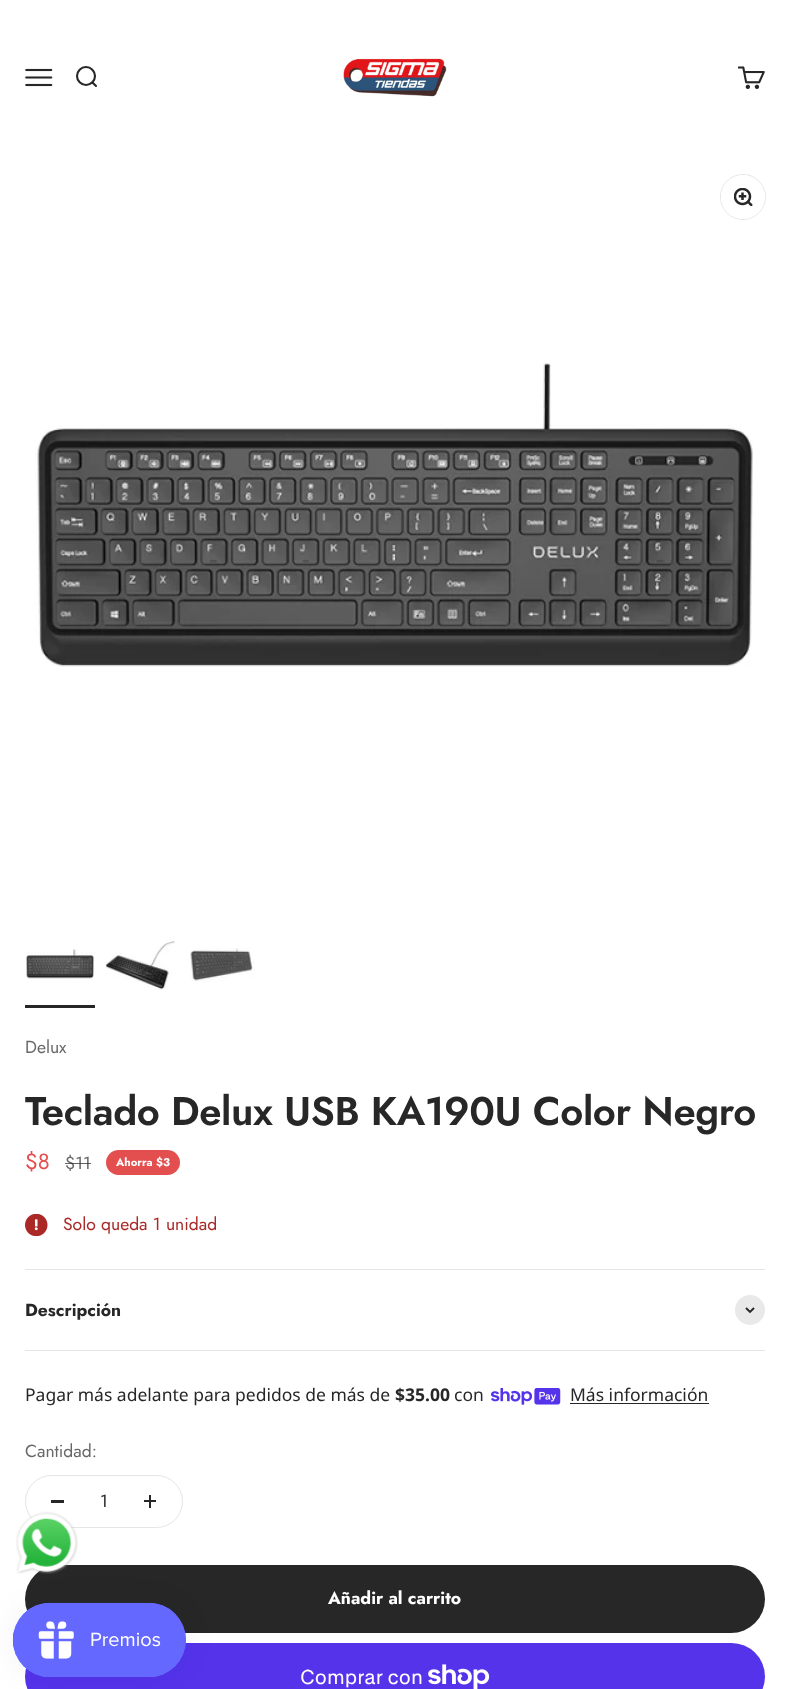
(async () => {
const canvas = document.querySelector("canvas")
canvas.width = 790
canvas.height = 1689
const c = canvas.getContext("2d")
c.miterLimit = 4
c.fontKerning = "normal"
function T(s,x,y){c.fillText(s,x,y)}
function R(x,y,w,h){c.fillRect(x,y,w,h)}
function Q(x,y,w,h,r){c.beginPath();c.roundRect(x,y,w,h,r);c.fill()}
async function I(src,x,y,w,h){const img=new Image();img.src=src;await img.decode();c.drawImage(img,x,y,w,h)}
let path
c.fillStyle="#fff"
R(0,0,790,1689)
await I("1.png",25,68,28,19)
c.beginPath()
c.arc(86,76,9,0,7)
c.strokeStyle="#272727"
c.lineWidth=2.1
c.stroke()
path = new Path2D("M92.5 82.5l3.5 3.5")
c.lineCap="round"
c.lineJoin="round"
c.stroke(path)
await I("2.png",343,58,104,39)
await I("3.png",738,66,27,23)
c.beginPath()
c.arc(743,197,22.5,0,7)
c.strokeStyle="#e5e5e5"
c.lineWidth=1
c.stroke()
c.beginPath()
c.arc(743,197,22,0,7)
c.fill()
await I("4.png",734,188,19,18)
await I("5.png",35,363,718,304)
await I("6.png",26,949,69,30)
c.fillStyle="#272727"
R(25,1005,70,3)
await I("7.png",105,940,70,50)
await I("8.png",190,948,65,34)
c.font="17.5px Jost"
c.fillStyle="#686868"
T("Delux",25,1053)
c.letterSpacing="-0.4px"
c.font="600 40px Jost"
c.fillStyle="#272727"
T("Teclado Delux USB KA190U Color Negro",25,1125)
c.letterSpacing="0px"
c.font="22px Jost"
c.fillStyle="#e34f4f"
T("$8",25,1169)
c.font="17.5px Jost"
c.fillStyle="#686868"
T("$11",65,1169)
c.fillStyle="#272727b3"
R(65,1163,26,1)
c.fillStyle="#e34f4f"
Q(106,1150,74,25,12.5)
c.font="bold 11.25px Jost"
c.fillStyle="#fff"
T("Ahorra $3",116,1166)
await I("9.png",25,1214,23,22)
c.font="17.5px Jost"
c.fillStyle="#aa2826"
T("Solo queda 1 unidad",63,1230)
c.fillStyle="#e5e5e5"
R(25,1269,740,1)
R(25,1350,740,1)
c.font="bold 17.5px Jost"
c.fillStyle="#272727"
T("Descripción",25,1316)
c.fillStyle="#e9e9e9"
c.beginPath()
c.arc(750,1310,15,0,7)
c.fill()
path = new Path2D("M746 1308l4 4l4-4")
c.strokeStyle="#272727"
c.lineWidth=1.9
c.lineCap="butt"
c.lineJoin="miter"
c.stroke(path)
c.font="17.5px Noto Sans"
c.fillStyle="#272727"
T("Pagar más adelante para pedidos de más de",25,1401)
c.font="bold 17.5px Noto Sans"
T("$35.00",395,1401)
c.font="17.5px Noto Sans"
T("con",454,1401)
await I("10.png",491,1388,70,17)
T("Más información",570,1401)
R(570,1403,139,1)
c.font="17.5px Jost"
c.fillStyle="#686868"
T("Cantidad:",25,1457)
c.beginPath()
c.roundRect(25.5,1475.5,157,52,26)
c.strokeStyle="#e5e5e5"
c.lineWidth=1
c.stroke()
c.fillStyle="#272727"
R(51,1500,13,3)
T("1",100,1507)
R(149,1495,2,13)
R(144,1500,12,2)
Q(25,1565,740,68,34)
c.font="bold 17.5px Jost"
c.fillStyle="#fff"
T("Añadir al carrito",328,1604)
c.fillStyle="#5433eb"
Q(25,1643,740,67,33.5)
c.font="20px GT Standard"
c.fillStyle="#fff"
T("Comprar con",300,1684)
await I("11.png",428,1664,62,25)
await I("12.png",16,1511,62,63)
c.fillStyle="#0000000d"
c.filter="blur(15.5px)"
c.beginPath()
c.roundRect(13,1603,173,75,37.5)
c.fill()
c.filter="none"
await I("13.png",12,1602,174,75)
})()
